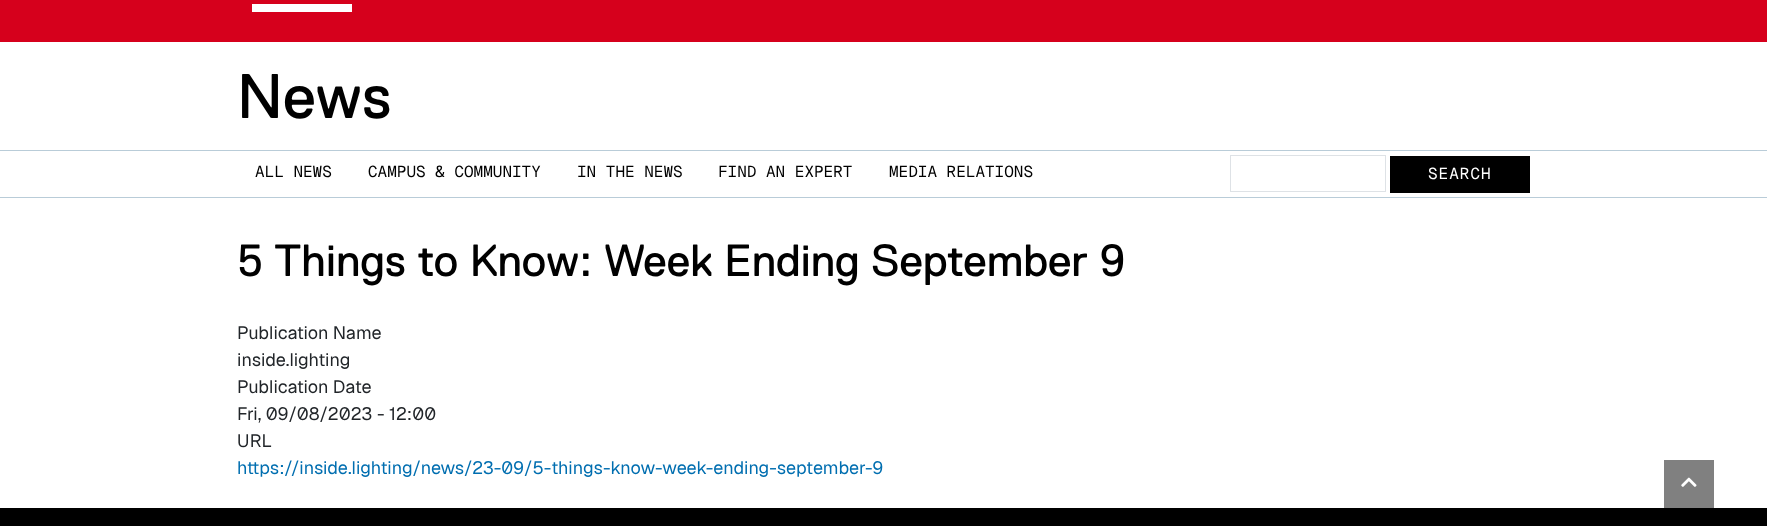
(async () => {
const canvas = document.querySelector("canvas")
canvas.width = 1767
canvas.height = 526
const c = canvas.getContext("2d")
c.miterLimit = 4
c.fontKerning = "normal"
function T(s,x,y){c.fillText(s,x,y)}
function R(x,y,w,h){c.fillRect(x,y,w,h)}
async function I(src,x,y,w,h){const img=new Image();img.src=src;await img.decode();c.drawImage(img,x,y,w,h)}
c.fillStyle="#fff"
R(0,0,1767,526)
c.fillStyle="#808080"
R(1664,460,50,48)
c.fillStyle="#d6001c"
R(0,0,1767,42)
c.fillStyle="#fff"
R(252,4,100,8)
c.font="63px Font"
c.fillStyle="#000"
T("News",237,118)
c.fillStyle="#b9ccd8"
R(0,150,1767,1)
R(0,197,1767,1)
c.font="16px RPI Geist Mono"
c.fillStyle="#000"
T("ALL NEWS",255,177)
T("CAMPUS & COMMUNITY",368,177)
T("IN THE NEWS",577,177)
T("FIND AN EXPERT",718,177)
T("MEDIA RELATIONS",889,177)
c.strokeStyle="#dee2e6"
c.strokeRect(1230.5,155.5,155,36)
c.beginPath()
c.rect(1391,157,138,35)
c.fill()
c.strokeStyle="#000"
c.lineWidth=2
c.stroke()
c.letterSpacing="1px"
c.fillStyle="#fff"
T("SEARCH",1428,179)
c.letterSpacing="0px"
c.font="45px Font"
c.fillStyle="#000"
T("5 Things to Know: Week Ending September 9",237,276)
c.font="18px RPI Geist"
c.fillStyle="#212529"
T("Publication Name",237,339)
T("inside.lighting",237,366)
T("Publication Date",237,393)
T("Fri, 09/08/2023 - 12:00",237,420)
T("URL",237,447)
c.fillStyle="#006eb0"
T("https://inside.lighting/news/23-09/5-things-know-week-ending-september-9",237,474)
await I("1.png",1681,477,16,10)
c.fillStyle="#000"
R(0,508,1767,18)
})()
